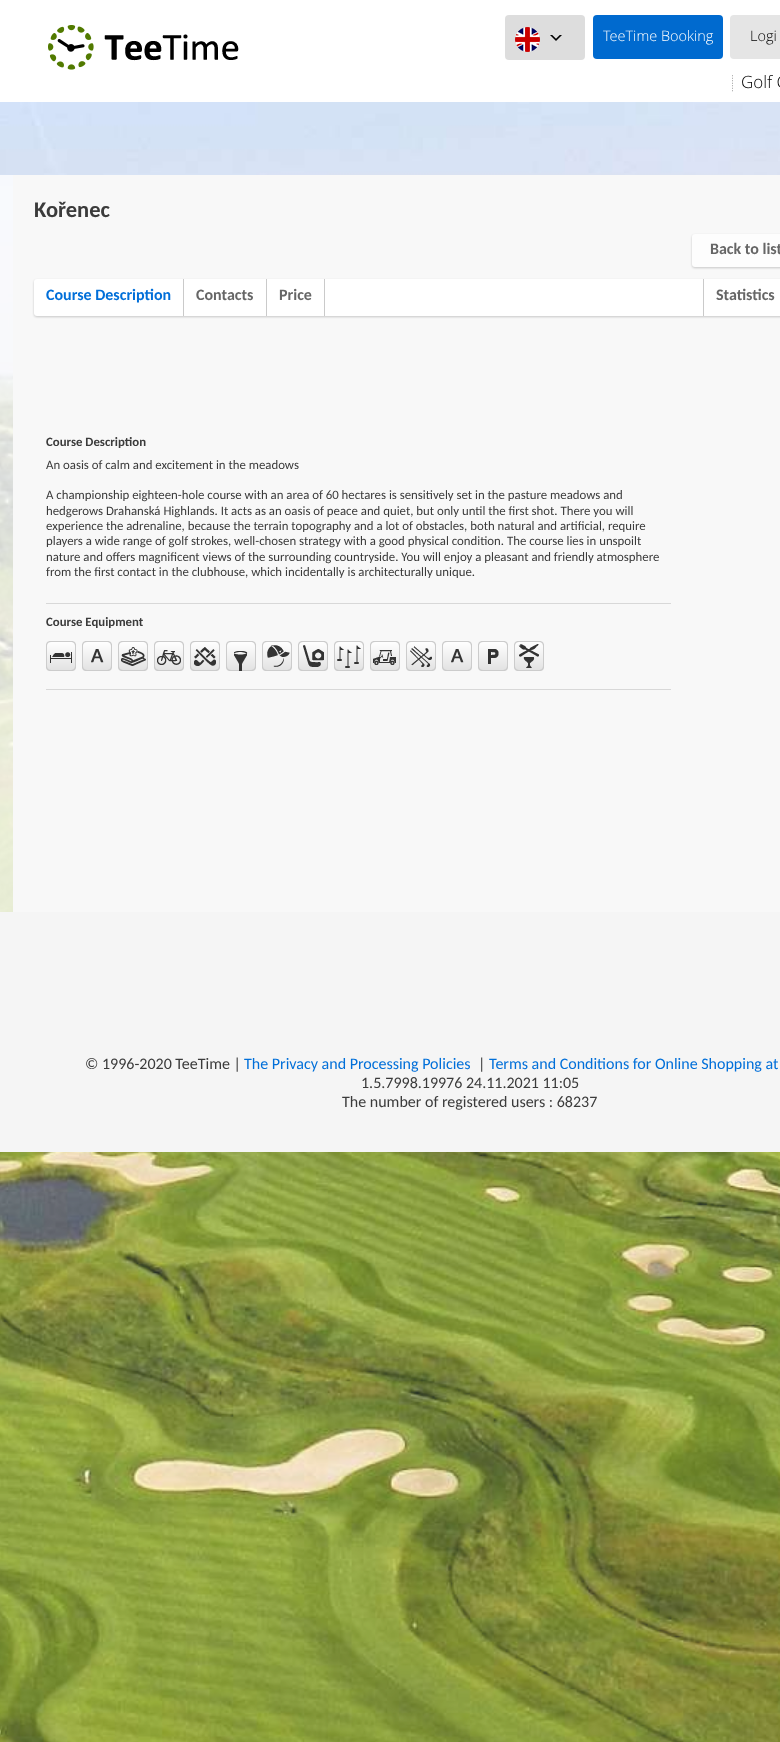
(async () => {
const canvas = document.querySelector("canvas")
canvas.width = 780
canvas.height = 1742
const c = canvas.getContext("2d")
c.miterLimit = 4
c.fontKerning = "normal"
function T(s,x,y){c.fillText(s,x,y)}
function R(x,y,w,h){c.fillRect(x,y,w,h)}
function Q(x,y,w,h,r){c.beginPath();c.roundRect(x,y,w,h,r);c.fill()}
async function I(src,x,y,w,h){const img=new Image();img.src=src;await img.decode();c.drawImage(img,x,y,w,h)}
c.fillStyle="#fff"
R(0,0,780,1742)
await I("1.png",48,25,191,45)
c.fillStyle="#ddd"
Q(505,15,80,45,4)
await I("2.png",550,35,12,6)
await I("3.png",515,27,25,25)
c.fillStyle="#006acf"
Q(593,15,130,44,4)
c.font="300 14.5px Open Sans"
c.fillStyle="#fff"
T("TeeTime Booking",603,41)
c.fillStyle="#e5e5e5"
Q(730,15,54,44,4)
c.fillStyle="#000"
T("Logi",750,41)
await I("4.png",732,75,1,17)
c.font="300 17px Open Sans"
T("Golf C",741,88)
await I("5.png",0,102,780,1640)
c.fillStyle="#ffffffc4"
R(0,175,13,737)
c.fillStyle="#f8f8f8"
R(13,175,767,737)
c.font="bold 22.5px Carlito"
c.fillStyle="#3b3b3b"
T("Kořenec",34,217)
c.fillStyle="#00000033"
c.filter="blur(1px)"
c.beginPath()
c.roundRect(692,235,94,33,3)
c.fill()
c.filter="none"
c.fillStyle="#fdfdfd"
Q(692,234,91,33,3)
c.font="bold 16px Carlito"
c.fillStyle="#666"
T("Back to list",710,254)
c.fillStyle="#00000033"
c.filter="blur(1px)"
c.beginPath()
c.roundRect(34,280,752,37,3)
c.fill()
c.filter="none"
c.fillStyle="#fff"
Q(34,279,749,37,3)
c.fillStyle="#cacaca"
R(183,279,1,37)
c.fillStyle="#006fd9"
T("Course Description",46,300)
c.fillStyle="#cacaca"
R(266,279,1,37)
c.fillStyle="#666"
T("Contacts",196,300)
c.fillStyle="#cacaca"
R(324,279,1,37)
c.fillStyle="#666"
T("Price",279,300)
c.fillStyle="#cacaca"
R(703,279,1,37)
c.fillStyle="#666"
T("Statistics",716,300)
c.font="bold 12.8px Carlito"
c.fillStyle="#3b3b3b"
T("Course Description",46,446)
c.font="12.8px Carlito"
T("An oasis of calm and excitement in the meadows",46,469)
T("A championship eighteen-hole course with an area of 60 hectares is sensitively set in the pasture meadows and",46,499)
T("hedgerows Drahanská Highlands. It acts as an oasis of peace and quiet, but only until the first shot. There you will",46,515)
T("experience the adrenaline, because the terrain topography and a lot of obstacles, both natural and artificial, require",46,530)
T("players a wide range of golf strokes, well-chosen strategy with a good physical condition. The course lies in unspoilt",46,545)
T("nature and offers magnificent views of the surrounding countryside. You will enjoy a pleasant and friendly atmosphere",46,561)
T("from the first contact in the clubhouse, which incidentally is architecturally unique.",46,576)
c.fillStyle="#d8d8d8"
R(46,603,625,1)
R(46,689,625,1)
c.font="bold 12.8px Carlito"
c.fillStyle="#3b3b3b"
T("Course Equipment",46,626)
await I("6.png",46,641,30,30)
await I("7.png",82,641,30,30)
await I("8.png",118,641,30,30)
await I("9.png",154,641,30,30)
await I("10.png",190,641,30,30)
await I("11.png",226,641,30,30)
await I("12.png",262,641,30,30)
await I("13.png",298,641,30,30)
await I("14.png",334,641,30,30)
await I("15.png",370,641,30,30)
await I("16.png",406,641,30,30)
await I("7.png",442,641,30,30)
await I("17.png",478,641,30,30)
await I("18.png",514,641,30,30)
c.fillStyle="#f5f5f5"
R(0,912,780,240)
c.font="16px Carlito"
c.fillStyle="#3b3b3b"
T("© 1996-2020 TeeTime |",85,1069)
c.fillStyle="#006fd9"
T("The Privacy and Processing Policies",244,1069)
c.fillStyle="#3b3b3b"
T("|",478,1069)
c.fillStyle="#006fd9"
T("Terms and Conditions for Online Shopping at",489,1069)
c.fillStyle="#3b3b3b"
T("1.5.7998.19976 24.11.2021 11:05",361,1088)
T("The number of registered users : 68237",342,1107)
})()
